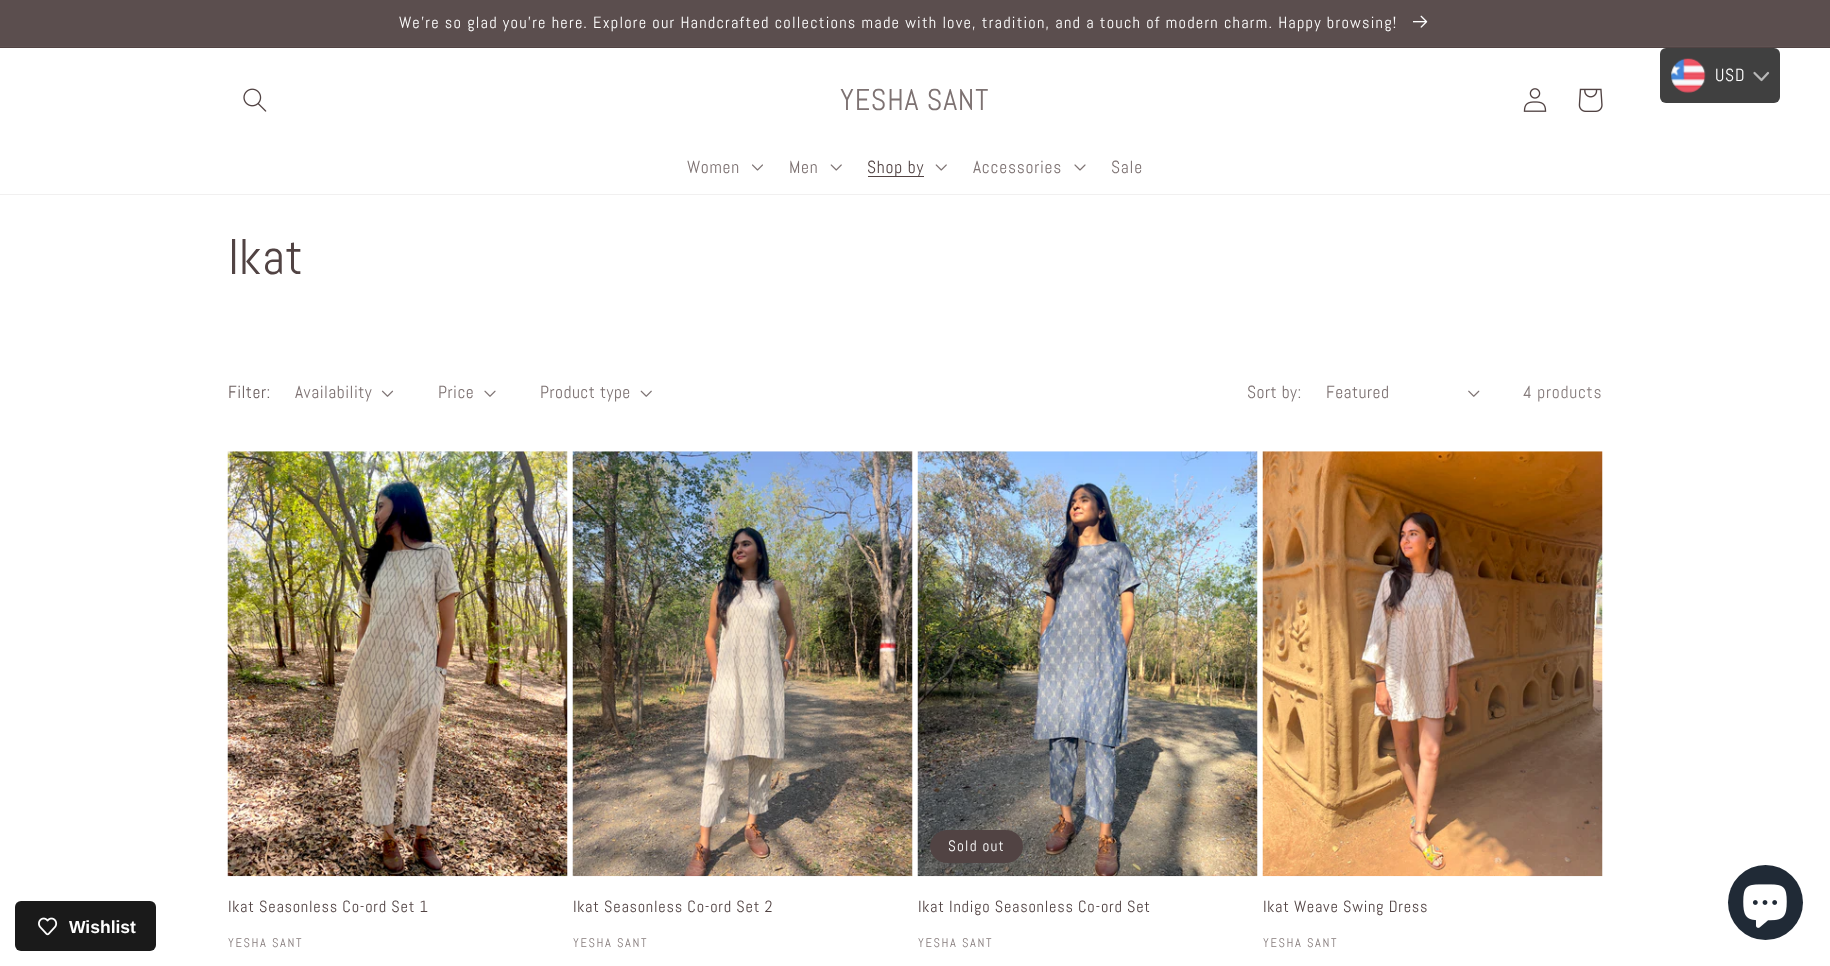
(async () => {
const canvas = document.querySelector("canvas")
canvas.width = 1830
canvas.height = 966
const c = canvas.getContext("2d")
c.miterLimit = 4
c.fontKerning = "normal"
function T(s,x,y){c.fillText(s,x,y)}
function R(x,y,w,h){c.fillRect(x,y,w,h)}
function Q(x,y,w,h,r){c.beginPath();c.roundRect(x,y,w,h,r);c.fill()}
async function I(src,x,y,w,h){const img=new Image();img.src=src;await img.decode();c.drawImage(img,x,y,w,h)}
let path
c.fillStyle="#fff"
R(0,0,1830,966)
c.fillStyle="#514343"
R(0,47,1830,1)
c.fillStyle="#5f5252"
R(0,46,1830,1)
c.fillStyle="#5b4e4e"
R(0,0,1830,46)
c.letterSpacing="1.25px"
c.font="16.25px Abel"
c.fillStyle="#fff"
T("We’re so glad you’re here. Explore our Handcrafted collections made with love, tradition, and a touch of modern charm. Happy browsing!",399,28)
await I("1.png",1413,15,15,13)
c.fillStyle="#404040"
Q(1660,48,120,55,6)
await I("2.png",1671,58,35,35)
c.letterSpacing="0.75px"
c.font="17.5px Abel"
c.fillStyle="#fff"
T("USD",1715,81)
path = new Path2D("M1754.5 73l7 7l6.5-7")
c.strokeStyle="#b7b7b7"
c.lineWidth=2.3
c.lineCap="round"
c.lineJoin="round"
c.stroke(path)
c.fillStyle="#f1f0f0"
R(0,194,1830,1)
await I("3.png",243,88,24,24)
c.font="30px Abel"
c.fillStyle="#7d7272"
T("YESHA SANT",840,110)
await I("4.png",1523,88,24,24)
await I("5.png",1578,88,25,24)
c.font="17.5px Abel"
T("Women",687,173)
await I("6.png",752,164,11,7)
T("Men",789,173)
await I("7.png",830,164,12,7)
c.fillStyle="#514343"
R(868,176,56,1)
T("Shop by",867,173)
await I("7.png",935,164,12,7)
c.fillStyle="#7d7272"
T("Accessories",973,173)
await I("8.png",1074,164,12,7)
T("Sale",1111,173)
c.fillStyle="#1a1a1a"
Q(15,901,141,50,6)
await I("9.png",38,917,20,19)
c.letterSpacing="0px"
c.font="bold 17.5px Liberation Sans"
c.fillStyle="#fff"
T("Wishlist",69,933)
c.letterSpacing="0.75px"
c.font="50px Abel"
c.fillStyle="#514343"
T("Ikat",228,274)
c.letterSpacing="0.5px"
c.font="17.5px Abel"
c.fillStyle="#6b5f5f"
T("Filter:",228,398)
c.fillStyle="#7d7272"
T("Availability",295,398)
await I("10.png",381,390,13,7)
T("Price",438,398)
await I("11.png",484,390,12,7)
T("Product type",540,398)
await I("12.png",640,390,12,7)
T("Sort by:",1247,398)
T("Featured",1326,398)
await I("13.png",1468,390,12,7)
c.letterSpacing="0.75px"
c.fillStyle="#857b7b"
T("4 products",1523,398)
await I("14.png",227,451,341,426)
c.font="16.25px Abel"
c.fillStyle="#514343"
T("Ikat Seasonless Co-ord Set 1",228,912)
c.letterSpacing="1.6px"
c.font="12.5px Abel"
c.fillStyle="#857b7b"
T("YESHA SANT",228,947)
await I("15.png",572,451,341,426)
c.letterSpacing="0.75px"
c.font="16.25px Abel"
c.fillStyle="#514343"
T("Ikat Seasonless Co-ord Set 2",573,912)
c.letterSpacing="1.6px"
c.font="12.5px Abel"
c.fillStyle="#857b7b"
T("YESHA SANT",573,947)
await I("16.png",917,451,341,426)
c.fillStyle="#514343"
c.beginPath()
c.roundRect(930.5,830.5,92,32,16)
c.fill()
c.strokeStyle="#514343"
c.lineWidth=1
c.lineJoin="miter"
c.stroke()
c.letterSpacing="1.25px"
c.font="15px Abel"
c.fillStyle="#fff"
T("Sold out",948,851)
c.letterSpacing="0.75px"
c.font="16.25px Abel"
c.fillStyle="#514343"
T("Ikat Indigo Seasonless Co-ord Set",918,912)
c.letterSpacing="1.6px"
c.font="12.5px Abel"
c.fillStyle="#857b7b"
T("YESHA SANT",918,947)
await I("17.png",1262,451,341,426)
c.letterSpacing="0.75px"
c.font="16.25px Abel"
c.fillStyle="#514343"
T("Ikat Weave Swing Dress",1263,912)
c.letterSpacing="1.6px"
c.font="12.5px Abel"
c.fillStyle="#857b7b"
T("YESHA SANT",1263,947)
c.fillStyle="#202a36"
c.beginPath()
c.arc(1765.5,902.5,37.5,0,7)
c.fill()
await I("18.png",1743,884,44,44)
})()
